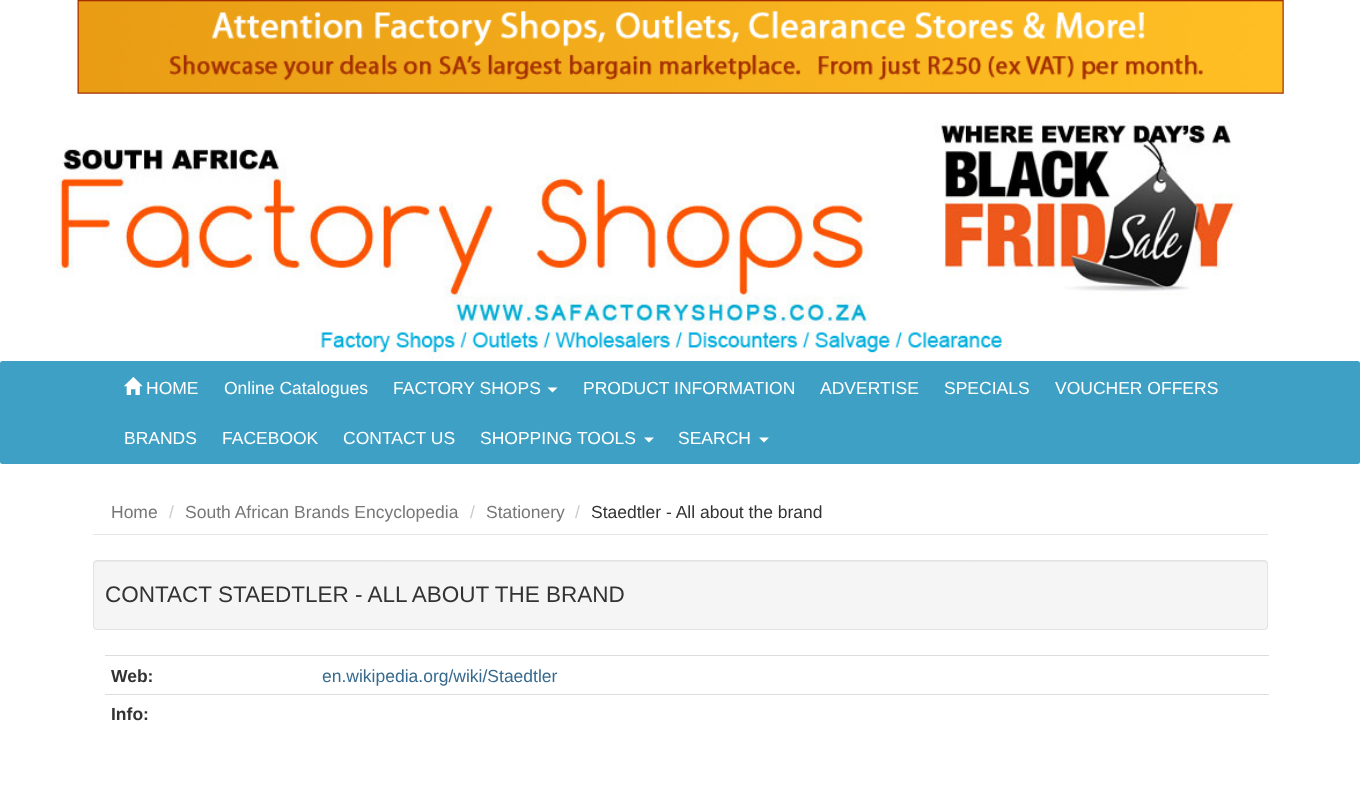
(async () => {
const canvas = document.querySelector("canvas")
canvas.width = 1360
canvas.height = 807
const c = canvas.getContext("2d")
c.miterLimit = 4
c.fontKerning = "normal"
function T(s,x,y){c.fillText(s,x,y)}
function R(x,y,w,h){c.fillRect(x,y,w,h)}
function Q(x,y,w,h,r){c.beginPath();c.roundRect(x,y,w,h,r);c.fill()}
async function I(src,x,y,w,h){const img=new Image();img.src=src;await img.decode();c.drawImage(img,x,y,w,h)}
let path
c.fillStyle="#fff"
R(0,0,1360,807)
await I("1.png",77,0,1207,94)
await I("2.png",55,120,1185,239)
c.fillStyle="#3ea0c4"
Q(0,361,1360,103,2.5)
await I("3.png",124,377,19,18)
c.font="17.5px Liberation Sans"
c.fillStyle="#fff"
T("HOME",146,394)
T("Online Catalogues",224,394)
T("FACTORY SHOPS",393,394)
path = new Path2D("M547.5 387.5h10l-5 5z")
c.fill(path)
T("PRODUCT INFORMATION",583,394)
T("ADVERTISE",820,394)
T("SPECIALS",944,394)
T("VOUCHER OFFERS",1055,394)
T("BRANDS",124,444)
T("FACEBOOK",222,444)
T("CONTACT US",343,444)
T("SHOPPING TOOLS",480,444)
path = new Path2D("M644 437.5h10l-5 5z")
c.fill(path)
T("SEARCH",678,444)
path = new Path2D("M759 437.5h10l-5 5z")
c.fill(path)
c.fillStyle="#e7e7e7"
R(93,534,1175,1)
c.fillStyle="#777"
T("Home",111,518)
c.fillStyle="#ccc"
T("/",169,518)
c.fillStyle="#777"
T("South African Brands Encyclopedia",185,518)
c.fillStyle="#ccc"
T("/",470,518)
c.fillStyle="#777"
T("Stationery",486,518)
c.fillStyle="#ccc"
T("/",575,518)
c.fillStyle="#333"
T("Staedtler - All about the brand",591,518)
c.fillStyle="#f5f5f5"
Q(93,560,1175,70,4)
c.fillStyle="#e9e9e9"
path = new Path2D("M96 562h1168c1 0 2 2 2 3c0-2 0-4-2-4h-1168c-2 0-2 2-2 4c0-1 1-3 2-3z")
c.fill(path)
c.beginPath()
c.roundRect(93.5,560.5,1174,69,3.5)
c.strokeStyle="#e3e3e3"
c.stroke()
c.font="22.5px Liberation Sans"
c.fillStyle="#333"
T("CONTACT STAEDTLER - ALL ABOUT THE BRAND",105,602)
c.font="bold 17.5px Liberation Sans"
T("Web:",111,682)
c.fillStyle="#ddd"
R(105,655,1164,1)
c.font="17.5px Liberation Sans"
c.fillStyle="#366a8e"
T("en.wikipedia.org/wiki/Staedtler",322,682)
c.fillStyle="#ddd"
R(105,694,1164,1)
c.font="bold 17.5px Liberation Sans"
c.fillStyle="#333"
T("Info:",111,720)
})()
